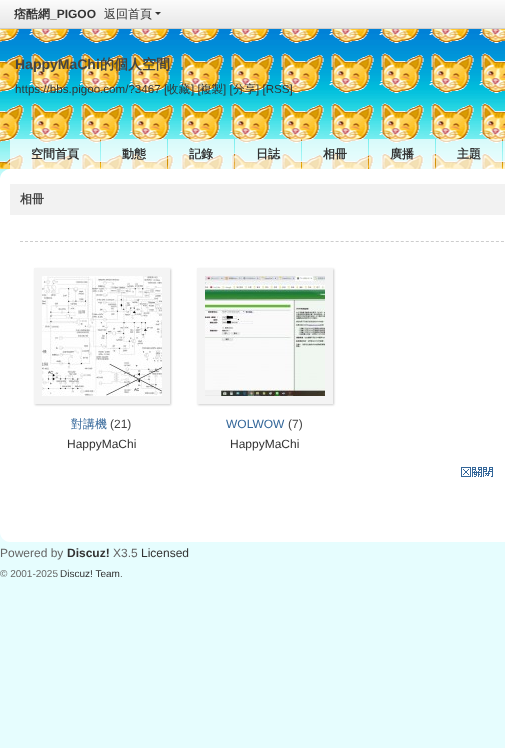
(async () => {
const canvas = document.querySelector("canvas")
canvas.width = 505
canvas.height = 748
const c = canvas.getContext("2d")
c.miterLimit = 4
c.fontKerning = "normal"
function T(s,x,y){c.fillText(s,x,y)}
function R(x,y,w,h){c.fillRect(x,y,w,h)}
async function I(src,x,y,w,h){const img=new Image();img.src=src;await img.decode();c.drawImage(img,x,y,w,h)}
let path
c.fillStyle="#e6fdfe"
R(0,0,505,748)
await I("1.png",0,29,505,140)
await I("2.png",0,0,505,28)
c.fillStyle="#cdcdcd"
R(0,28,505,1)
c.font="bold 12px WenQuanYi Zen Hei"
c.fillStyle="#333"
T("痞酷網",14,18)
c.font="bold 12px Liberation Sans"
T("_PIGOO",50,18)
c.font="500 12px WenQuanYi Zen Hei"
T("返回首頁",104,18)
path = new Path2D("M155 12h6l-3 3z")
c.fill(path)
await I("3.png",0,29,505,140)
c.font="bold 14px Liberation Sans"
c.fillStyle="#444"
T("HappyMaChi",15,69)
c.font="bold 14px WenQuanYi Zen Hei"
T("的個人空間",100,69)
c.font="11.6px Liberation Sans"
c.fillStyle="#333"
T("https://bbs.pigoo.com/?3467 [",15,93)
c.font="500 11.6px WenQuanYi Zen Hei"
T("收藏",167,93)
c.font="11.6px Liberation Sans"
T("] [",191,93)
c.font="500 11.6px WenQuanYi Zen Hei"
T("複製",200,93)
c.font="11.6px Liberation Sans"
T("] [",223,93)
c.font="500 11.6px WenQuanYi Zen Hei"
T("分享",233,93)
c.font="11.6px Liberation Sans"
T("] [RSS]",256,93)
c.fillStyle="#ffffffb3"
R(10,139,90,30)
c.font="bold 12px WenQuanYi Zen Hei"
c.fillStyle="#333"
T("空間首頁",31,158)
c.fillStyle="#ffffffb3"
R(101,139,66,30)
c.fillStyle="#333"
T("動態",122,158)
c.fillStyle="#ffffffb3"
R(168,139,66,30)
c.fillStyle="#333"
T("記錄",189,158)
c.fillStyle="#ffffffb3"
R(235,139,66,30)
c.fillStyle="#333"
T("日誌",256,158)
c.fillStyle="#ffffffb3"
R(302,139,66,30)
c.fillStyle="#333"
T("相冊",323,158)
c.fillStyle="#ffffffb3"
R(369,139,66,30)
c.fillStyle="#333"
T("廣播",390,158)
c.fillStyle="#ffffffb3"
R(436,139,66,30)
c.fillStyle="#333"
T("主題",457,158)
c.fillStyle="#ffffffb3"
R(503,139,2,30)
c.fillStyle="#fff"
R(0,169,505,354)
await I("4.png",0,169,9,9)
c.fillStyle="#f2f2f2"
R(10,184,495,31)
c.fillStyle="#444"
T("相冊",20,203)
path = new Path2D("M20 241.5h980")
c.strokeStyle="#cdcdcd"
c.setLineDash([3,2.01])
c.stroke(path)
c.fillStyle="#ccc"
c.filter="blur(1px)"
c.beginPath()
c.rect(35,269,136,136)
c.fill()
c.filter="none"
c.fillStyle="#f4f4f4"
R(34,268,136,136)
await I("5.png",42,276,120,120)
c.font="500 12px WenQuanYi Zen Hei"
c.fillStyle="#369"
T("對講機",71,428)
c.font="12px Liberation Sans"
c.fillStyle="#444"
T("(21)",110,428)
c.fillStyle="#333"
T("HappyMaChi",67,448)
c.fillStyle="#ccc"
c.filter="blur(1px)"
c.beginPath()
c.rect(198,269,136,136)
c.fill()
c.filter="none"
c.fillStyle="#f4f4f4"
R(197,268,136,136)
await I("6.png",205,276,120,120)
c.fillStyle="#369"
T("WOLWOW",226,428)
c.fillStyle="#444"
T("(7)",288,428)
c.fillStyle="#333"
T("HappyMaChi",230,448)
await I("7.png",461,467,32,10)
await I("8.png",0,523,505,19)
c.fillStyle="#666"
T("Powered by",0,557)
c.font="bold 12px Liberation Sans"
c.fillStyle="#333"
T("Discuz!",67,557)
c.font="12px Liberation Sans"
c.fillStyle="#666"
T("X3.5",113,557)
c.fillStyle="#333"
T("Licensed",141,557)
c.font="10px Liberation Sans"
c.fillStyle="#666"
T("© 2001-2025",0,577)
c.fillStyle="#333"
T("Discuz! Team",60,577)
c.fillStyle="#666"
T(".",120,577)
})()
